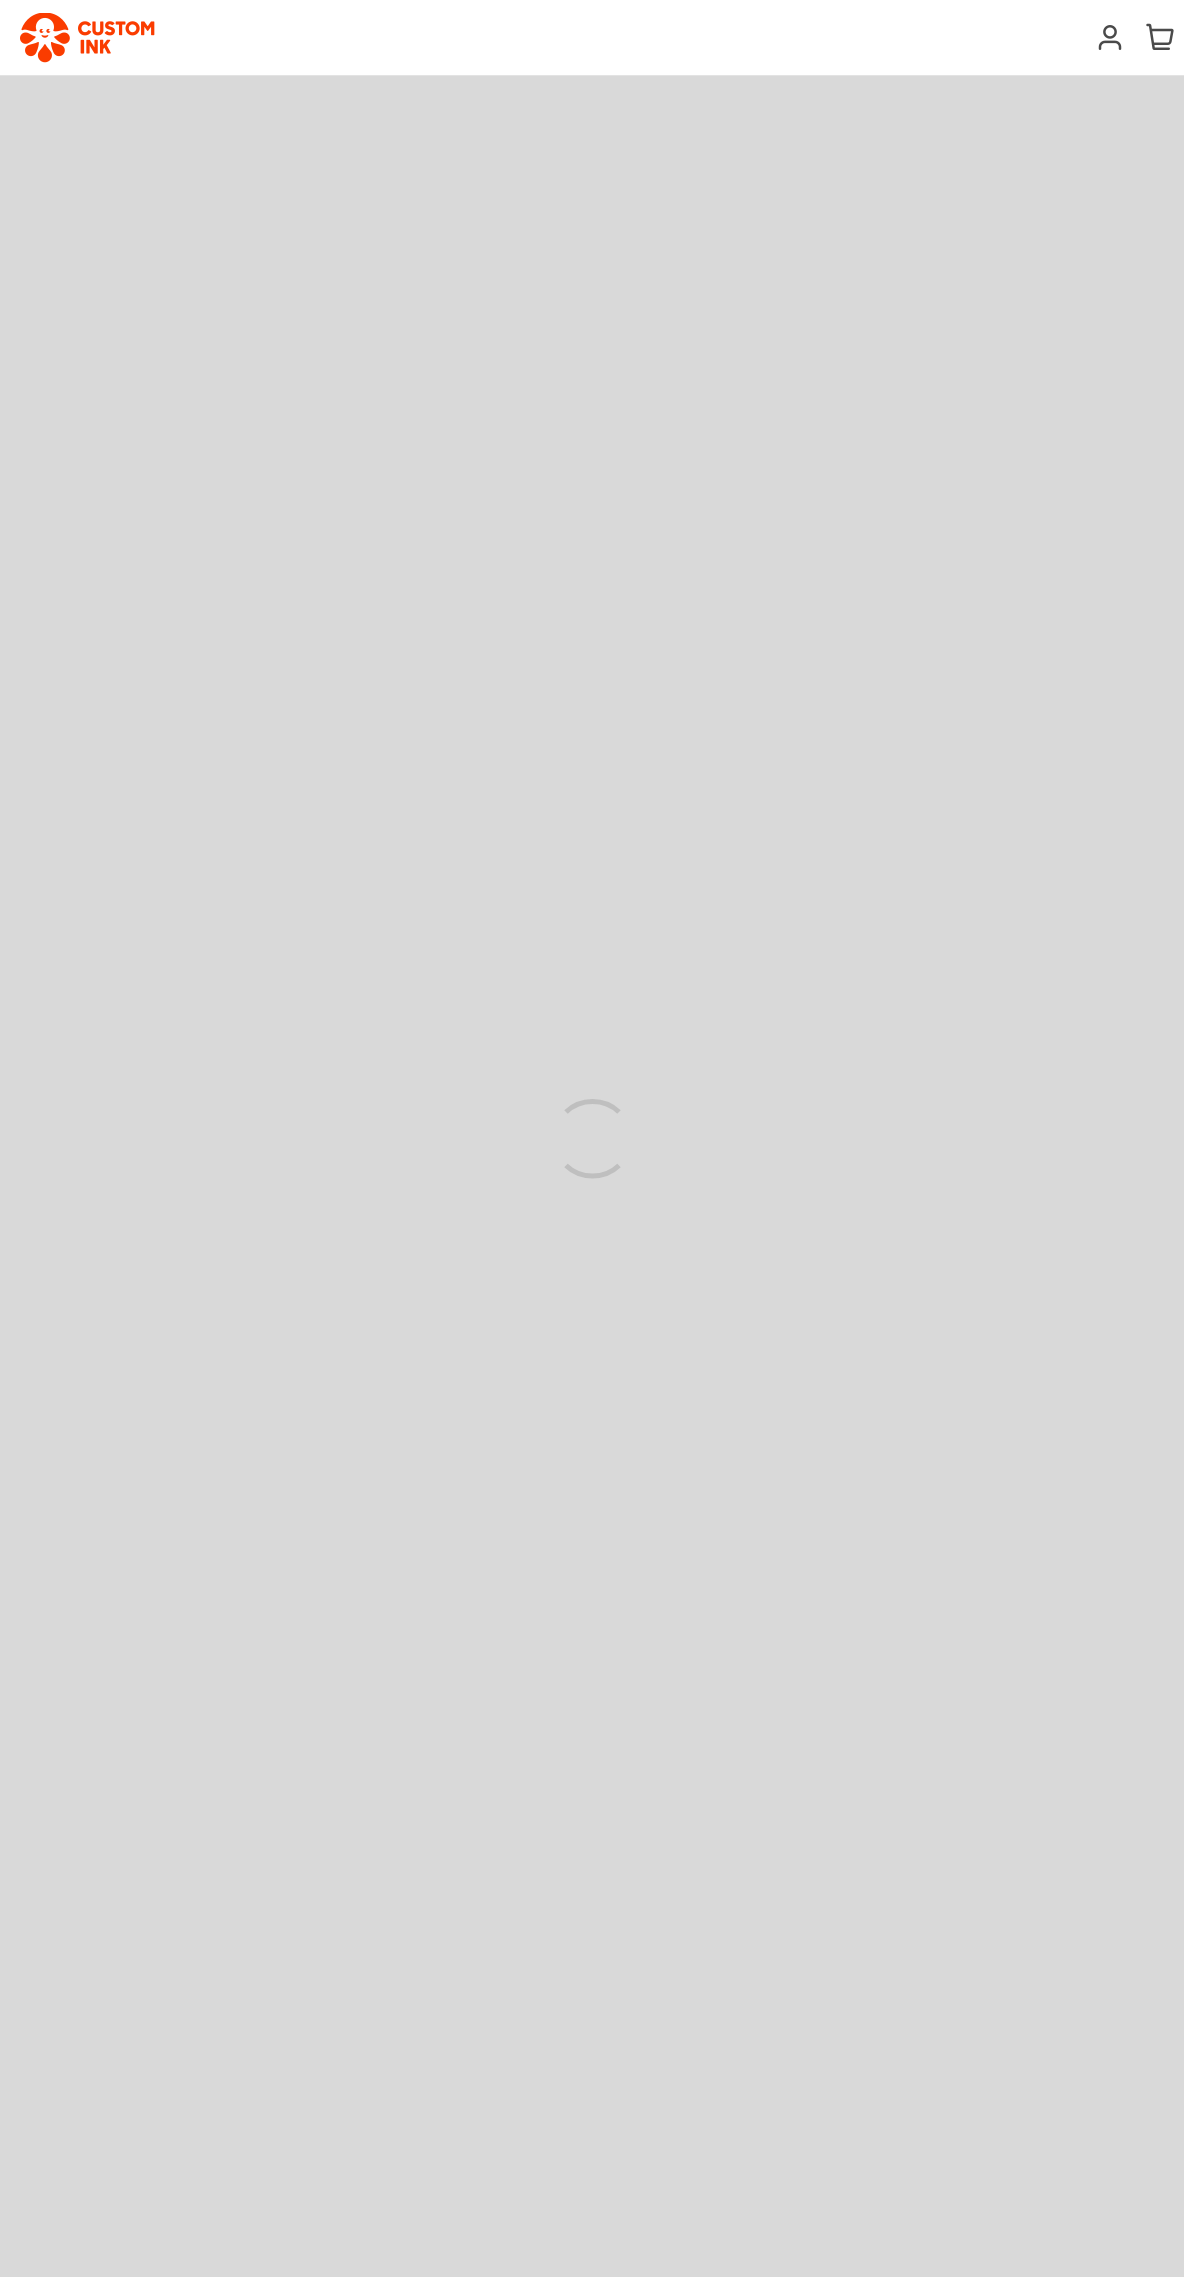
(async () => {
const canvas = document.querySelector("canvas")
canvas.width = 1184
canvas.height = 2277
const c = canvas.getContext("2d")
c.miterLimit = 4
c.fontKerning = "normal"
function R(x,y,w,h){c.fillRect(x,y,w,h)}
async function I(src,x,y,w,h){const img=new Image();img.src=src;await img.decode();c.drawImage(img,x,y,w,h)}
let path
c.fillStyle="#d9d9d9"
R(0,0,1184,2277)
c.fillStyle="#fff"
R(0,0,1184,75)
c.fillStyle="#e3e3e3"
R(0,75,1184,1)
await I("1.png",20,13,135,50)
await I("2.png",1098,25,24,25)
await I("3.png",1146,23,28,27)
path = new Path2D("M566 1112c14.5-14 38.5-14 53 0")
c.strokeStyle="#bfbfbf"
c.lineWidth=5
c.stroke(path)
path = new Path2D("M619 1165.5c-14.5 14-38.5 14-53 0")
c.stroke(path)
})()
